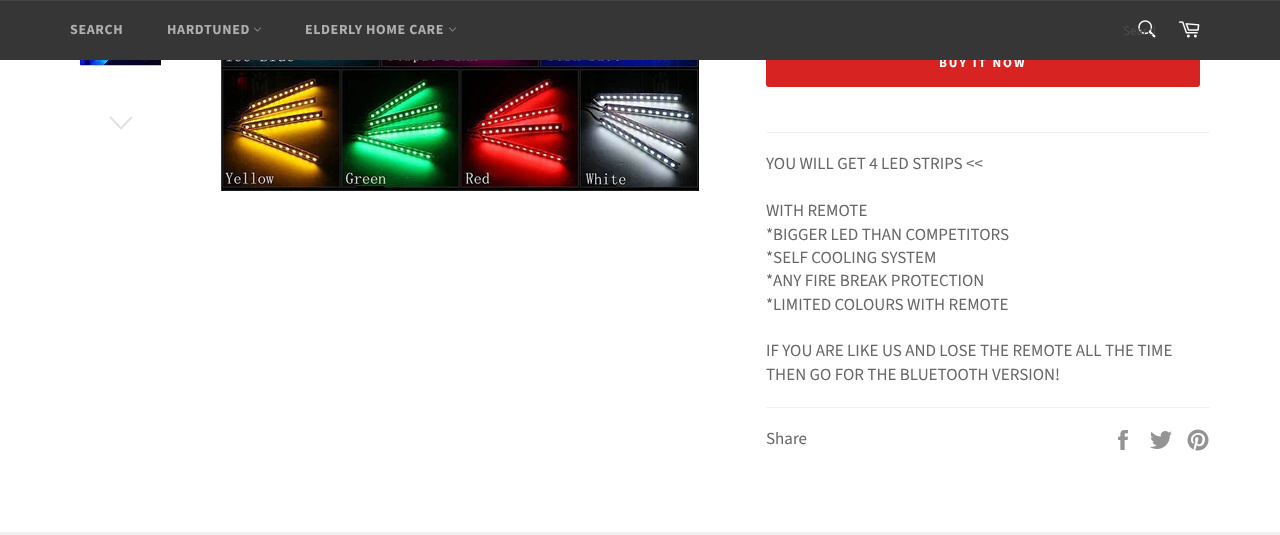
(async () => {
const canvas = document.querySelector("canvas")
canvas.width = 1280
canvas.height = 535
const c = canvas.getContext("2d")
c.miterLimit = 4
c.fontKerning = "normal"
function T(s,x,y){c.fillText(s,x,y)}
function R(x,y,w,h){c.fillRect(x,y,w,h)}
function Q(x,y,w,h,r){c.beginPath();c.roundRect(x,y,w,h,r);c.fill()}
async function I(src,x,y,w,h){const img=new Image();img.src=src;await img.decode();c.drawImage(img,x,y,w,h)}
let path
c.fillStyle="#fff"
R(0,0,1280,535)
c.fillStyle="#d82323"
Q(766,39,434,48,3)
c.letterSpacing="2px"
c.font="bold 13px Source Sans Pro"
c.fillStyle="#fff"
T("BUY IT NOW",939,67)
c.fillStyle="#363636"
R(0,1,1280,59)
c.fillStyle="#434343"
R(0,0,1280,1)
c.letterSpacing="0.6px"
c.font="bold 14px Source Sans Pro"
c.fillStyle="#afafaf"
T("SEARCH",70,34)
T("HARDTUNED",167,34)
await I("1.png",254,27,7,5)
T("ELDERLY HOME CARE",305,34)
await I("1.png",449,27,7,5)
await I("2.png",1138,20,18,18)
c.save()
c.beginPath()
c.rect(1123,22,32,18)
c.clip()
c.letterSpacing="0px"
c.font="13px Source Sans Pro"
c.fillStyle="#4e4e4e"
T("Search",1123,35)
c.restore()
await I("3.png",1178,21,22,17)
await I("4.png",80,60,81,6)
c.fillStyle="#e0e0e0"
path = new Path2D("M131.5 116l1 1.5l-11.5 12.5l-11.5-12.5l1-1.5l10.5 11z")
c.fill(path)
await I("5.png",219,60,480,131)
c.fillStyle="#f0f0f0"
R(766,132,444,1)
c.letterSpacing="0px"
c.font="17px Source Sans Pro"
c.fillStyle="#666"
T("YOU WILL GET 4 LED STRIPS <<",766,169)
T("WITH REMOTE",766,216)
T("*BIGGER LED THAN COMPETITORS",766,240)
T("*SELF COOLING SYSTEM",766,263)
T("*ANY FIRE BREAK PROTECTION",766,286)
T("*LIMITED COLOURS WITH REMOTE",766,310)
T("IF YOU ARE LIKE US AND LOSE THE REMOTE ALL THE TIME",766,356)
T("THEN GO FOR THE BLUETOOTH VERSION!",766,380)
c.fillStyle="#f0f0f0"
R(766,407,444,1)
c.fillStyle="#666"
T("Share",766,444)
await I("6.png",1118,430,10,20)
await I("7.png",1150,431,22,18)
await I("8.png",1187,429,22,22)
c.fillStyle="#f0f0f0"
R(0,532,1280,3)
})()
